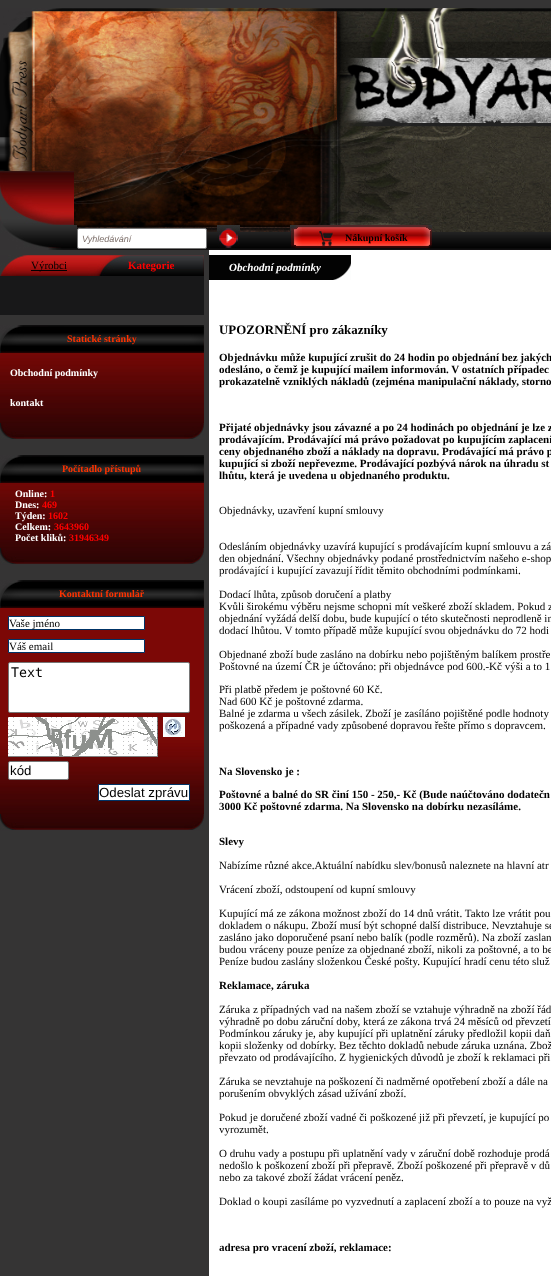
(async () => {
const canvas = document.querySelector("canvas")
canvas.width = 551
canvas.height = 1276
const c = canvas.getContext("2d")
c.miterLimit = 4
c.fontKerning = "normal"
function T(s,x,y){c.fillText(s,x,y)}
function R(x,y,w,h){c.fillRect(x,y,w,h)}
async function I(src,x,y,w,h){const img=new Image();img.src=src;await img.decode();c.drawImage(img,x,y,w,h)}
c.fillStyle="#353434"
R(0,0,551,1276)
c.fillStyle="#fff"
R(209,250,342,1026)
await I("1.png",0,8,551,129)
await I("3.png",0,137,13,34)
await I("5.png",77,231,474,19)
await I("2.png",3,8,548,224)
await I("4.png",0,171,74,54)
await I("6.png",0,225,77,25)
c.beginPath()
c.roundRect(77.5,228.5,129,20,1.5)
c.fill()
c.strokeStyle="#767676"
c.stroke()
c.font="italic 9px Liberation Sans"
c.fillStyle="#7c6e69"
T("Vyhledávání",82,242)
await I("7.png",217,225,23,23)
await I("8.png",290,225,12,23)
await I("9.png",302,225,116,23)
await I("10.png",317,228,16,20)
c.font="bold 10px Liberation Serif"
c.fillStyle="#000"
T("Nákupní košík",345,241)
await I("11.png",418,225,14,23)
c.fillStyle="#181819"
R(0,276,204,39)
await I("12.png",0,255,98,21)
c.fillStyle="#000"
R(31,270,36,1)
c.font="11px Liberation Serif"
T("Výrobci",31,269)
await I("13.png",98,255,106,21)
c.font="bold 11px Liberation Serif"
c.fillStyle="#f00"
T("Kategorie",128,269)
await I("14.png",0,325,204,28)
c.font="bold 10px Liberation Serif"
c.fillStyle="#f30"
T("Statické stránky",67,342)
await I("15.png",0,353,204,70)
c.fillStyle="#fff"
T("Obchodní podmínky",10,376)
T("kontakt",10,406)
await I("16.png",0,423,204,17)
await I("14.png",0,455,204,28)
c.fillStyle="#f30"
T("Počítadlo přístupů",62,472)
await I("17.png",0,483,204,65)
c.fillStyle="#fff"
T("Online:",15,497)
c.fillStyle="#f00"
T("1",50,497)
c.fillStyle="#fff"
T("Dnes:",15,508)
c.fillStyle="#f00"
T("469",42,508)
c.fillStyle="#fff"
T("Týden:",15,519)
c.fillStyle="#f00"
T("1602",48,519)
c.fillStyle="#fff"
T("Celkem:",15,530)
c.fillStyle="#f00"
T("3643960",54,530)
c.fillStyle="#fff"
T("Počet kliků:",15,541)
c.fillStyle="#f00"
T("31946349",69,541)
await I("16.png",0,548,204,17)
c.fillStyle="#7c0806"
R(0,608,204,132)
await I("14.png",0,580,204,28)
c.fillStyle="#f30"
T("Kontaktní formulář",59,597)
await I("18.png",0,740,204,74)
c.fillStyle="#fff"
c.beginPath()
c.rect(8.5,616.5,136,13)
c.fill()
c.strokeStyle="#036"
c.stroke()
c.font="11px Liberation Serif"
c.fillStyle="#000"
T("Vaše jméno",9,627)
c.fillStyle="#fff"
c.beginPath()
c.rect(8.5,639.5,136,13)
c.fill()
c.stroke()
c.fillStyle="#000"
T("Váš email",9,650)
c.fillStyle="#fff"
c.beginPath()
c.roundRect(8.5,662.5,181,50,1.5)
c.fill()
c.strokeStyle="#767676"
c.stroke()
c.font="13.25px DejaVu Sans Mono"
c.fillStyle="#000"
T("Text",11,677)
await I("19.png",8,717,150,40)
await I("20.png",163,717,22,20)
c.fillStyle="#fff"
c.beginPath()
c.roundRect(8.5,761.5,60,18,1.5)
c.fill()
c.stroke()
c.font="13.25px Liberation Sans"
c.fillStyle="#000"
T("kód",10,775)
c.fillStyle="#fff"
c.beginPath()
c.rect(98.5,784.5,91,16)
c.fill()
c.strokeStyle="#036"
c.stroke()
c.fillStyle="#000"
T("Odeslat zprávu",99,797)
await I("16.png",0,814,204,17)
c.fillStyle="#030303"
R(209,255,142,25)
await I("21.png",333,263,18,17)
c.font="italic bold 11px Liberation Serif"
c.fillStyle="#fff"
T("Obchodní podmínky",229,271)
c.font="bold 12.9px Liberation Serif"
c.fillStyle="#000"
T("UPOZORNĚNÍ pro zákazníky",219,334)
c.font="bold 11px Liberation Serif"
T("Objednávku může kupující zrušit do 24 hodin po objednání bez jakých",219,361)
T("odesláno, o čemž je kupující mailem informován. V ostatních případec",219,373)
T("prokazatelně vzniklých nákladů (zejména manipulační náklady, storno",219,385)
T("Přijaté objednávky jsou závazné a po 24 hodinách po objednání je lze z",219,431)
T("prodávajícím. Prodávající má právo požadovat po kupujícím zaplacení",219,443)
T("ceny objednaného zboží a náklady na dopravu. Prodávající má právo p",219,455)
T("kupující si zboží nepřevezme. Prodávající pozbývá nárok na úhradu st",219,467)
T("lhůtu, která je uvedena u objednaného produktu.",219,479)
c.font="11px Liberation Serif"
T("Objednávky, uzavření kupní smlouvy",219,514)
T("Odesláním objednávky uzavírá kupující s prodávajícím kupní smlouvu a zá",219,550)
T("den objednání. Všechny objednávky podané prostřednictvím našeho e-shop",219,562)
T("prodávající i kupující zavazují řídit těmito obchodními podmínkami.",219,574)
T("Dodací lhůta, způsob doručení a platby",219,598)
T("Kvůli širokému výběru nejsme schopni mít veškeré zboží skladem. Pokud z",219,610)
T("objednání vyžádá delší dobu, bude kupující o této skutečnosti neprodleně in",219,622)
T("dodací lhůtou. V tomto případě může kupující svou objednávku do 72 hodi",219,634)
T("Objednané zboží bude zasláno na dobírku nebo pojištěným balíkem prostře",219,658)
T("Poštovné na území ČR je účtováno: při objednávce pod 600.-Kč výši a to 1",219,670)
T("Při platbě předem je poštovné 60 Kč.",219,693)
T("Nad 600 Kč je poštovné zdarma.",219,705)
T("Balné je zdarma u všech zásilek. Zboží je zasíláno pojištěné podle hodnoty",219,717)
T("poškozená a případné vady způsobené dopravou řešte přímo s dopravcem.",219,729)
c.font="bold 11px Liberation Serif"
T("Na Slovensko je :",219,775)
T("Poštovné a balné do SR činí 150 - 250,- Kč (Bude naúčtováno dodatečn",219,798)
T("3000 Kč poštovné zdarma. Na Slovensko na dobírku nezasíláme.",219,810)
T("Slevy",219,845)
c.font="11px Liberation Serif"
T("Nabízíme různé akce.Aktuální nabídku slev/bonusů naleznete na hlavní atr",219,869)
T("Vrácení zboží, odstoupení od kupní smlouvy",219,893)
T("Kupující má ze zákona možnost zboží do 14 dnů vrátit. Takto lze vrátit pou",219,917)
T("dokladem o nákupu. Zboží musí být schopné další distribuce. Nevztahuje se",219,929)
T("zasláno jako doporučené psaní nebo balík (podle rozměrů). Na zboží zaslan",219,941)
T("budou vráceny pouze peníze za objednané zboží, nikoli za poštovné, a to be",219,953)
T("Peníze budou zaslány složenkou České pošty. Kupující hradí cenu této služ",219,965)
c.font="bold 11px Liberation Serif"
T("Reklamace, záruka",219,989)
c.font="11px Liberation Serif"
T("Záruka z případných vad na našem zboží se vztahuje výhradně na zboží řád",219,1013)
T("výhradně po dobu záruční doby, která ze zákona trvá 24 měsíců od převzetí",219,1025)
T("Podmínkou záruky je, aby kupující při uplatnění záruky předložil kopii daň",219,1037)
T("kopii složenky od dobírky. Bez těchto dokladů nebude záruka uznána. Zbož",219,1049)
T("převzato od prodávajícího. Z hygienických důvodů je zboží k reklamaci při",219,1061)
T("Záruka se nevztahuje na poškození či nadměrné opotřebení zboží a dále na",219,1085)
T("porušením obvyklých zásad užívání zboží.",219,1097)
T("Pokud je doručené zboží vadné či poškozené již při převzetí, je kupující po",219,1121)
T("vyrozumět.",219,1133)
T("O druhu vady a postupu při uplatnění vady v záruční době rozhoduje prodá",219,1157)
T("nedošlo k poškození zboží při přepravě. Zboží poškozené při přepravě v dů",219,1169)
T("nebo za takové zboží žádat vrácení peněz.",219,1181)
T("Doklad o koupi zasíláme po vyzvednutí a zaplacení zboží a to pouze na vyž",219,1205)
c.font="bold 11px Liberation Serif"
T("adresa pro vracení zboží, reklamace:",219,1251)
})()
